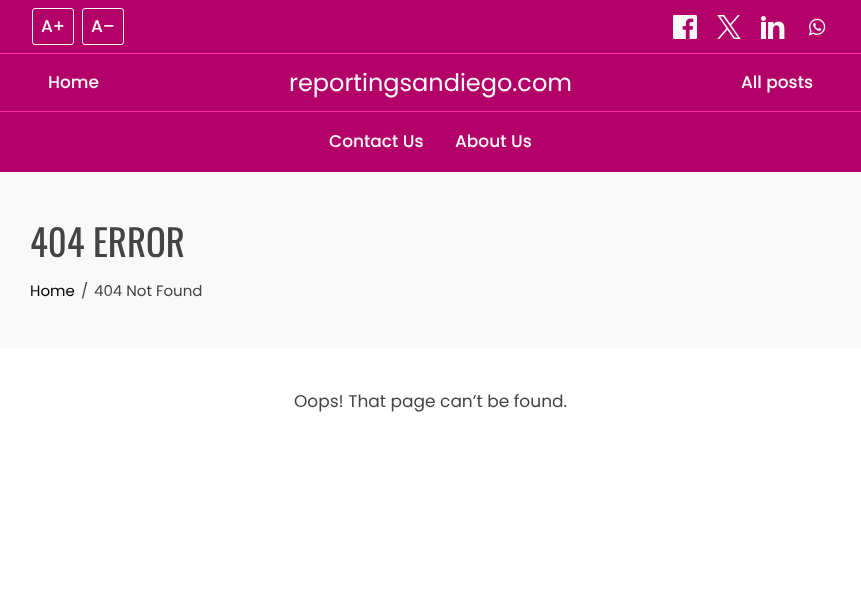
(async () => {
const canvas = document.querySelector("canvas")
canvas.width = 861
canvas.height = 595
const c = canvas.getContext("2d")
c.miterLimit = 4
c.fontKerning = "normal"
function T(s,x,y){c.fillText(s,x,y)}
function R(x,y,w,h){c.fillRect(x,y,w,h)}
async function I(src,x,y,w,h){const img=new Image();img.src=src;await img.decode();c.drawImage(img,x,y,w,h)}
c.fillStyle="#fff"
R(0,0,861,595)
c.fillStyle="#b20068"
R(0,0,861,53)
c.beginPath()
c.roundRect(32.5,8.5,41,36,2.5)
c.strokeStyle="#f9f9f9"
c.stroke()
c.font="500 17px Poppins"
c.fillStyle="#f9f9f9"
T("A+",41,32)
c.beginPath()
c.roundRect(82.5,8.5,41,36,2.5)
c.stroke()
T("A–",91,32)
await I("1.png",673,15,24,24)
await I("2.png",717,15,24,24)
await I("3.png",761,16,24,23)
await I("4.png",808,18,18,18)
c.fillStyle="#ff28a5"
R(0,53,861,1)
c.fillStyle="#b20068"
R(0,54,861,57)
c.fillStyle="#ff28a5"
R(0,111,861,1)
c.fillStyle="#f9f9f9"
T("Home",48,88)
c.font="24px Poppins"
T("reportingsandiego.com",289,91)
c.font="500 17px Poppins"
T("All posts",741,88)
c.fillStyle="#b20068"
R(0,112,861,60)
c.fillStyle="#f9f9f9"
T("Contact Us",329,147)
T("About Us",455,147)
R(0,172,861,176)
c.font="36.75px Oswald"
c.fillStyle="#444"
T("404 ERROR",30,257)
c.font="15px Poppins"
c.fillStyle="#000"
T("Home",30,296)
c.fillStyle="#444"
T("/",81,296)
T("404 Not Found",94,296)
c.font="17px Poppins"
T("Oops! That page can’t be found.",294,407)
})()
